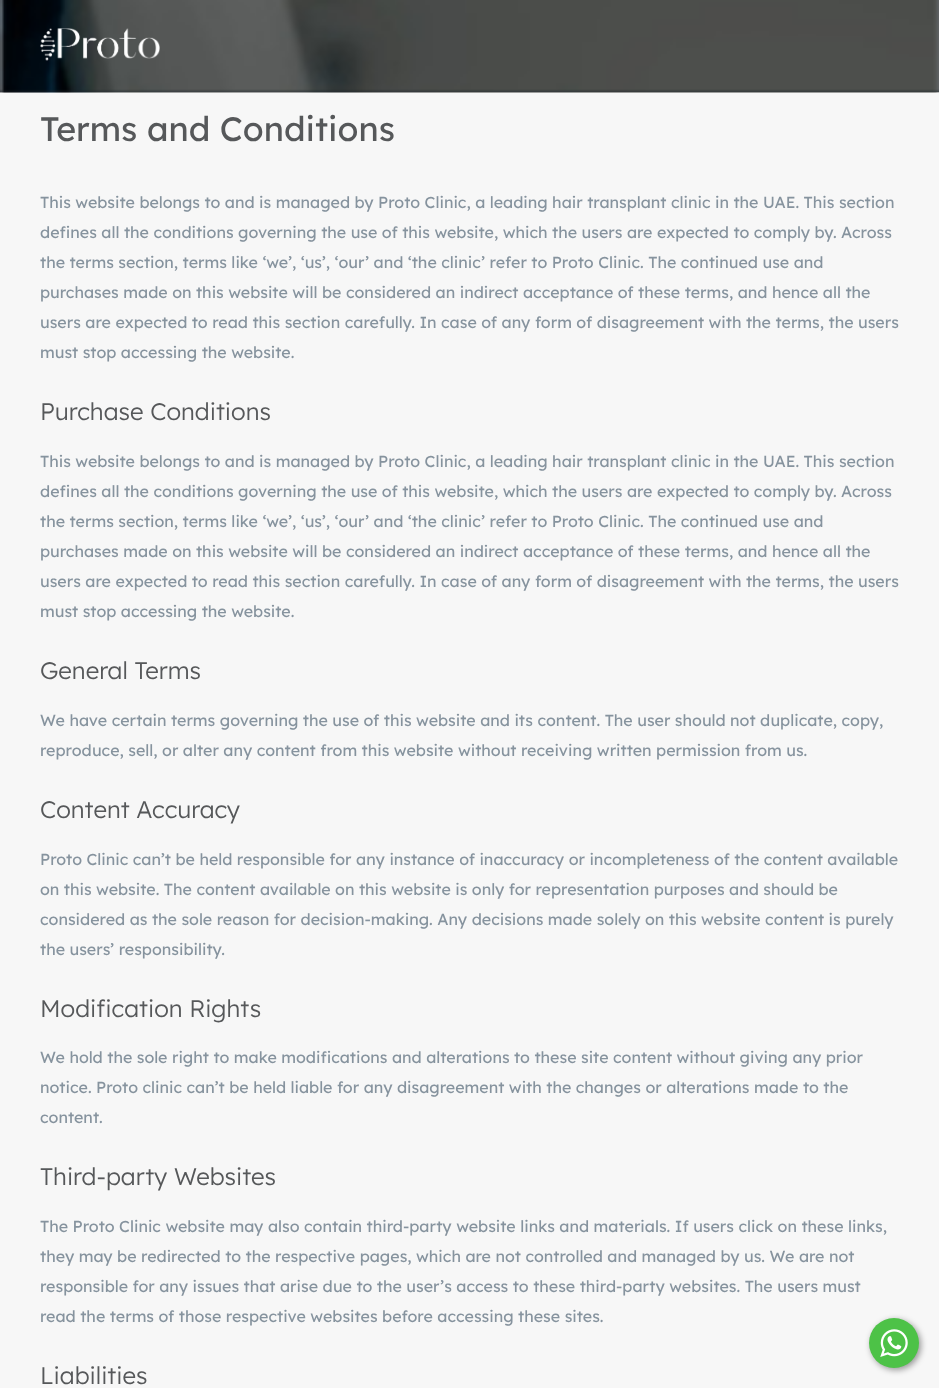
(async () => {
const canvas = document.querySelector("canvas")
canvas.width = 939
canvas.height = 1388
const c = canvas.getContext("2d")
c.miterLimit = 4
c.fontKerning = "normal"
function T(s,x,y){c.fillText(s,x,y)}
function R(x,y,w,h){c.fillRect(x,y,w,h)}
async function I(src,x,y,w,h){const img=new Image();img.src=src;await img.decode();c.drawImage(img,x,y,w,h)}
c.fillStyle="#f7f7f7"
R(0,0,939,1388)
c.fillStyle="#1e262d"
R(0,0,939,92)
await I("1.png",0,0,939,93)
await I("2.png",40,28,120,33)
c.fillStyle="#00000066"
c.filter="blur(3px)"
c.beginPath()
c.roundRect(871,1320,50,50,25)
c.fill()
c.filter="none"
c.fillStyle="#4dc247"
c.beginPath()
c.arc(894,1343,25,0,7)
c.fill()
await I("3.png",880,1329,28,28)
c.font="34px Lexend Deca"
c.fillStyle="#56585a"
T("Terms and Conditions",40,141)
c.font="16px Lexend Deca"
c.fillStyle="#86939e"
T("This website belongs to and is managed by Proto Clinic, a leading hair transplant clinic in the UAE. This section",40,208)
T("defines all the conditions governing the use of this website, which the users are expected to comply by. Across",40,238)
T("the terms section, terms like ‘we’, ‘us’, ‘our’ and ‘the clinic’ refer to Proto Clinic. The continued use and",40,268)
T("purchases made on this website will be considered an indirect acceptance of these terms, and hence all the",40,298)
T("users are expected to read this section carefully. In case of any form of disagreement with the terms, the users",40,328)
T("must stop accessing the website.",40,358)
c.font="300 24px Lexend Deca"
c.fillStyle="#56585a"
T("Purchase Conditions",40,420)
c.font="16px Lexend Deca"
c.fillStyle="#86939e"
T("This website belongs to and is managed by Proto Clinic, a leading hair transplant clinic in the UAE. This section",40,467)
T("defines all the conditions governing the use of this website, which the users are expected to comply by. Across",40,497)
T("the terms section, terms like ‘we’, ‘us’, ‘our’ and ‘the clinic’ refer to Proto Clinic. The continued use and",40,527)
T("purchases made on this website will be considered an indirect acceptance of these terms, and hence all the",40,557)
T("users are expected to read this section carefully. In case of any form of disagreement with the terms, the users",40,587)
T("must stop accessing the website.",40,617)
c.font="300 24px Lexend Deca"
c.fillStyle="#56585a"
T("General Terms",40,679)
c.font="16px Lexend Deca"
c.fillStyle="#86939e"
T("We have certain terms governing the use of this website and its content. The user should not duplicate, copy,",40,726)
T("reproduce, sell, or alter any content from this website without receiving written permission from us.",40,756)
c.font="300 24px Lexend Deca"
c.fillStyle="#56585a"
T("Content Accuracy",40,818)
c.font="16px Lexend Deca"
c.fillStyle="#86939e"
T("Proto Clinic can’t be held responsible for any instance of inaccuracy or incompleteness of the content available",40,865)
T("on this website. The content available on this website is only for representation purposes and should be",40,895)
T("considered as the sole reason for decision-making. Any decisions made solely on this website content is purely",40,925)
T("the users’ responsibility.",40,955)
c.font="300 24px Lexend Deca"
c.fillStyle="#56585a"
T("Modification Rights",40,1017)
c.font="16px Lexend Deca"
c.fillStyle="#86939e"
T("We hold the sole right to make modifications and alterations to these site content without giving any prior",40,1063)
T("notice. Proto clinic can’t be held liable for any disagreement with the changes or alterations made to the",40,1093)
T("content.",40,1123)
c.font="300 24px Lexend Deca"
c.fillStyle="#56585a"
T("Third-party Websites",40,1185)
c.font="16px Lexend Deca"
c.fillStyle="#86939e"
T("The Proto Clinic website may also contain third-party website links and materials. If users click on these links,",40,1232)
T("they may be redirected to the respective pages, which are not controlled and managed by us. We are not",40,1262)
T("responsible for any issues that arise due to the user’s access to these third-party websites. The users must",40,1292)
T("read the terms of those respective websites before accessing these sites.",40,1322)
c.font="300 24px Lexend Deca"
c.fillStyle="#56585a"
T("Liabilities",40,1384)
})()
